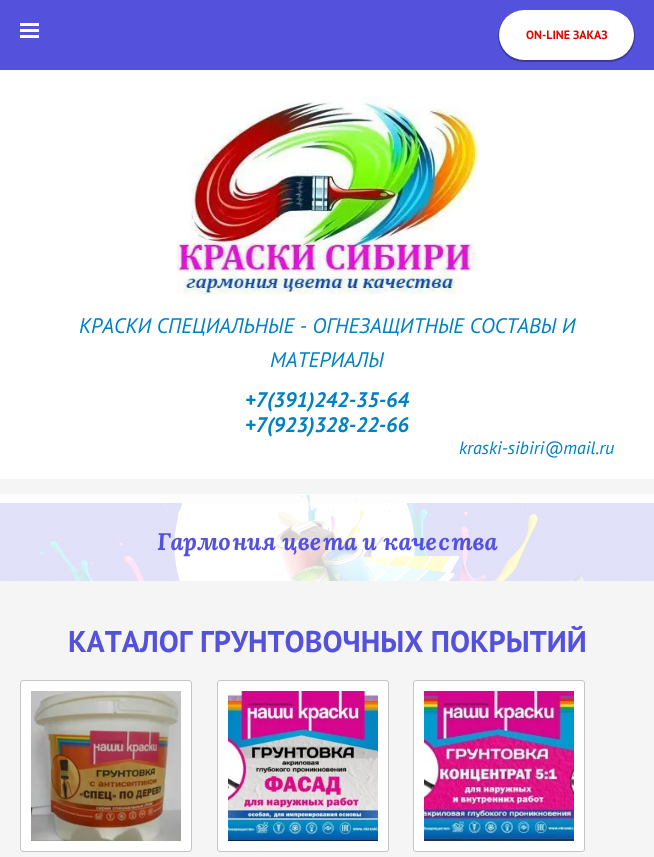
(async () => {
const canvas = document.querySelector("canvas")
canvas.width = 654
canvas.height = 857
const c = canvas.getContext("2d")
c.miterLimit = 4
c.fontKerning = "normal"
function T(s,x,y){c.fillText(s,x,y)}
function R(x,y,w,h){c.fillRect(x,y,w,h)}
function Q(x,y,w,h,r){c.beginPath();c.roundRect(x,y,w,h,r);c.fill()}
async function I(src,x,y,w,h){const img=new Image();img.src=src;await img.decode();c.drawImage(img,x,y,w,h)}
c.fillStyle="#f5f5f5"
R(0,0,654,857)
c.fillStyle="#5451dd"
R(0,0,654,70)
c.fillStyle="#fff"
R(20,23,19,3)
R(20,29,19,3)
R(20,35,19,3)
c.fillStyle="#0000004d"
c.filter="blur(0.5px)"
c.beginPath()
c.roundRect(498,10,137,52,26)
c.fill()
c.filter="none"
c.fillStyle="#fff"
Q(499,10,135,50,25)
c.font="bold 12px PT Sans"
c.fillStyle="#d40b00"
T("ON-LINE ЗАКАЗ",526,39)
c.fillStyle="#fff"
R(0,70,654,409)
await I("1.png",177,96,300,198)
c.font="italic 21px PT Sans"
c.fillStyle="#0081c2"
T("КРАСКИ СПЕЦИАЛЬНЫЕ - ОГНЕЗАЩИТНЫЕ СОСТАВЫ И",79,333)
T("МАТЕРИАЛЫ",270,367)
c.font="italic bold 21px PT Sans"
T("+7(391)242-35-64",245,407)
T("+7(923)328-22-66",245,432)
c.font="italic 18px PT Sans"
T("kraski-sibiri@mail.ru",459,454)
await I("2.png",0,494,654,87)
c.font="italic bold 24px Lora"
c.fillStyle="#5451dd"
T("Гармония цвета и качества",157,550)
c.font="bold 30px PT Sans"
T("КАТАЛОГ ГРУНТОВОЧНЫХ ПОКРЫТИЙ",68,652)
c.fillStyle="#fff"
c.beginPath()
c.roundRect(20.5,680.5,171,171,2.5)
c.fill()
c.strokeStyle="#c5c5c5"
c.stroke()
await I("3.png",31,691,150,150)
c.beginPath()
c.roundRect(217.5,680.5,171,171,2.5)
c.fill()
c.stroke()
await I("4.png",228,691,150,150)
c.beginPath()
c.roundRect(413.5,680.5,171,171,2.5)
c.fill()
c.stroke()
await I("5.png",424,691,150,150)
})()
